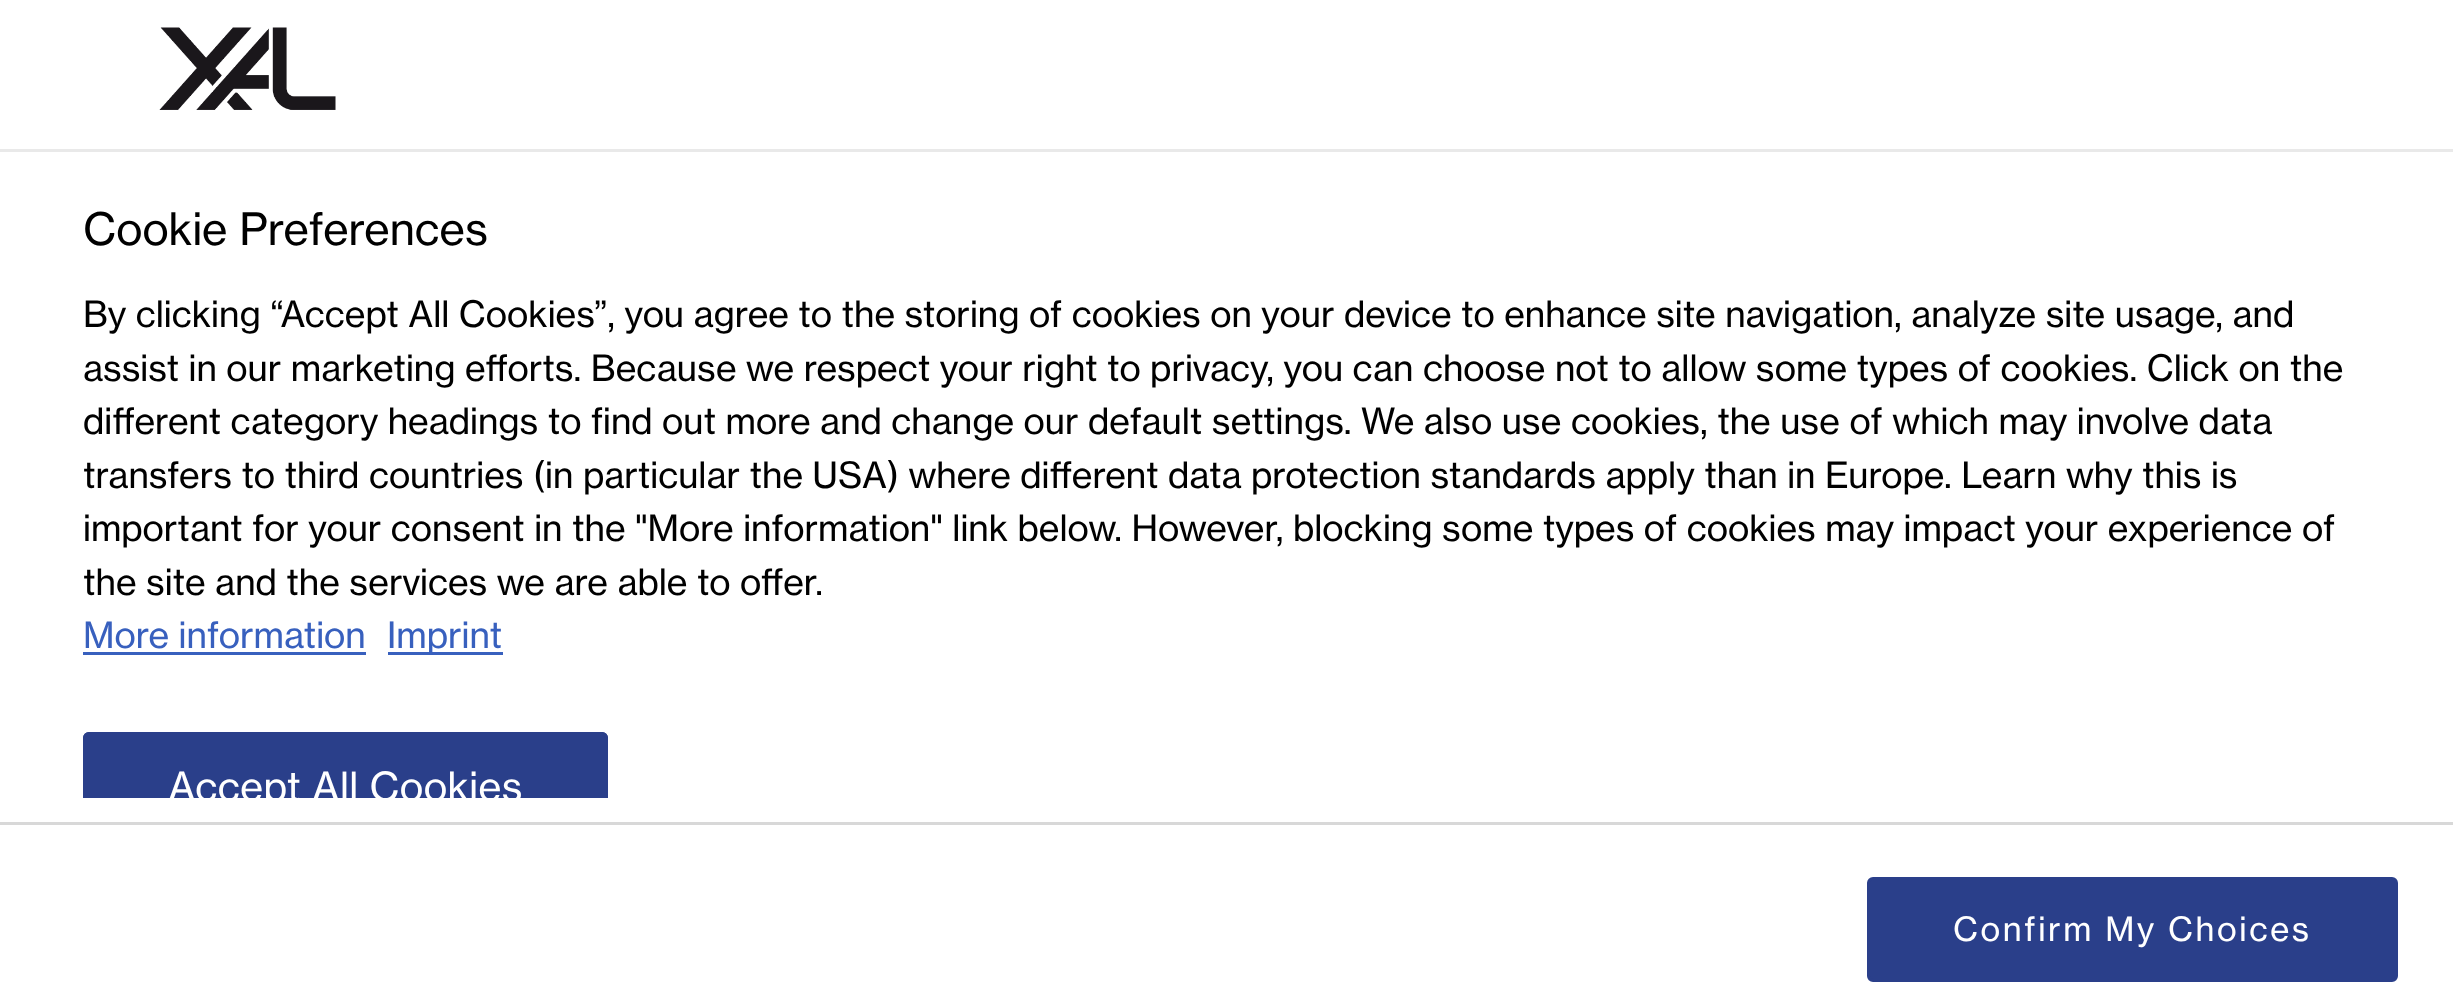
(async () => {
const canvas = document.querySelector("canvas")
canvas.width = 2453
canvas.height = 988
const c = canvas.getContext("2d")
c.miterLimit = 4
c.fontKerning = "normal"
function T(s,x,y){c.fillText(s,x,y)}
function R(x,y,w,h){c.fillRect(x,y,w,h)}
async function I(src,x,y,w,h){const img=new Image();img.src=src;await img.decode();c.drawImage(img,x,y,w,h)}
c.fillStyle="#fff"
R(0,0,2453,988)
c.fillStyle="#e9e9e9"
R(0,149,2453,3)
await I("1.png",159,27,177,83)
c.font="44px 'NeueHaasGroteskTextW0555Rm'"
c.fillStyle="#000"
T("Cookie Preferences",83,245)
c.font="35.73px 'NeueHaasGroteskTextW0555Rm'"
T("By clicking “Accept All Cookies”, you agree to the storing of cookies on your device to enhance site navigation, analyze site usage, and",83,327)
T("assist in our marketing efforts. Because we respect your right to privacy, you can choose not to allow some types of cookies. Click on the",83,381)
T("different category headings to find out more and change our default settings. We also use cookies, the use of which may involve data",83,434)
T("transfers to third countries (in particular the USA) where different data protection standards apply than in Europe. Learn why this is",83,488)
T("important for your consent in the \"More information\" link below. However, blocking some types of cookies may impact your experience of",83,541)
T("the site and the services we are able to offer.",83,595)
c.fillStyle="#3860be"
T("More information",83,648)
R(83,652,283,3)
R(388,652,115,3)
T("Imprint",387,648)
c.fillStyle="#2a3f8a"
c.beginPath()
c.roundRect(83,732,525,66,[6,6,0,0])
c.fill()
c.save()
c.beginPath()
c.rect(83,168,2362,630)
c.clip()
c.beginPath()
c.roundRect(84.5,733.5,522,109,4.5)
c.strokeStyle="#2a3f8a"
c.lineWidth=3
c.stroke()
c.letterSpacing="0.4px"
c.font="39.5px 'NeueHaasGroteskTextW0555Rm'"
c.fillStyle="#fff"
T("Accept All Cookies",168,801)
c.restore()
c.fillStyle="#d8d8d8"
R(0,822,2453,3)
c.fillStyle="#2a3f8a"
c.beginPath()
c.roundRect(1868.5,878.5,528,102,4.5)
c.fill()
c.strokeStyle="#2a3f8a"
c.lineWidth=3
c.stroke()
c.letterSpacing="2.6px"
c.font="33px 'NeueHaasGroteskTextW0555Rm'"
c.fillStyle="#fff"
T("Confirm My Choices",1953,941)
})()
